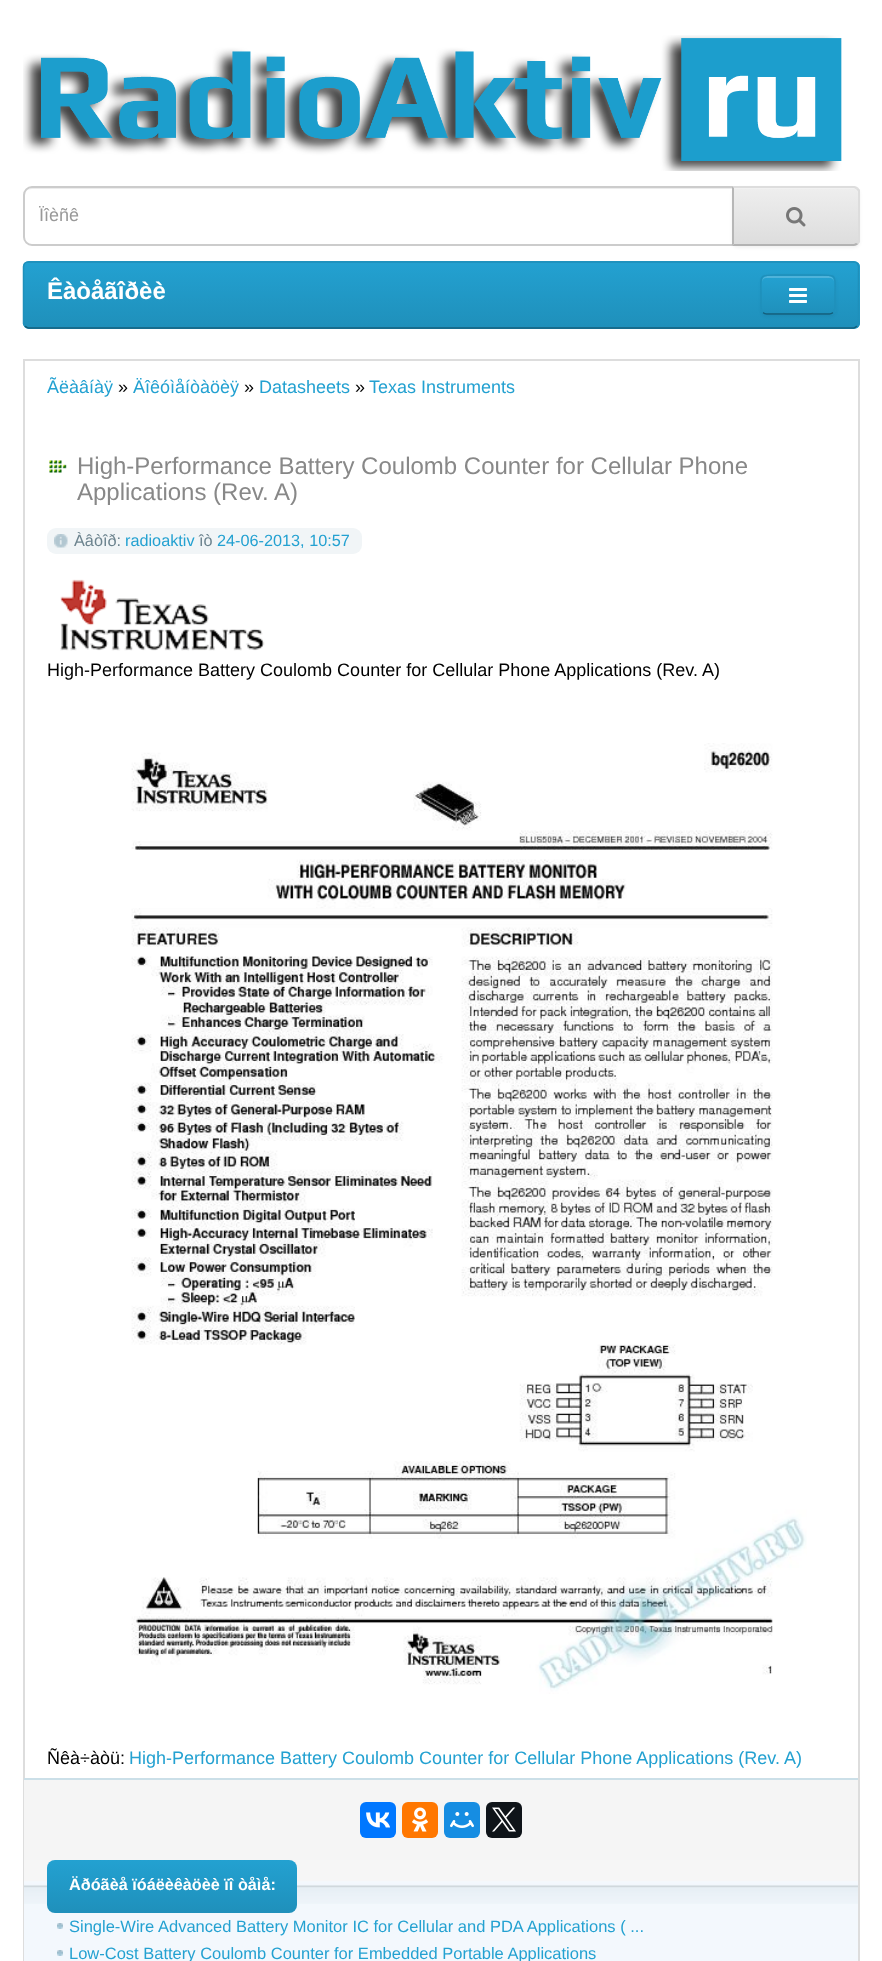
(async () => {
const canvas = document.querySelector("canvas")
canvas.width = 882
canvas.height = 1961
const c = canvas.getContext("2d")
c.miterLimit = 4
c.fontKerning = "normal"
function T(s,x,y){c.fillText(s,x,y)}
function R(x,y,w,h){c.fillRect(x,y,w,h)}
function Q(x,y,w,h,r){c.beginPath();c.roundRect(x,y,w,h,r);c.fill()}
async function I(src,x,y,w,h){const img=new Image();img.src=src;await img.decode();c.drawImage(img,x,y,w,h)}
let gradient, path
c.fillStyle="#fff"
R(0,0,882,1961)
await I("1.png",23,35,819,136)
c.fillStyle="#ececec"
path = new Path2D("M32 189h700v-1h-700c-4 0-8 4-8 8c0-4 3-7 8-7z")
c.fill(path)
c.beginPath()
c.roundRect(24,187,709,58,[8,0,0,8])
c.strokeStyle="#ccc"
c.lineWidth=2
c.stroke()
c.font="18px Liberation Sans"
c.fillStyle="#999"
T("Ïîèñê",39,221)
c.fillStyle="#0000000d"
c.filter="blur(1.5px)"
c.beginPath()
c.roundRect(732,188,128,60,6)
c.fill()
c.filter="none"
c.fillStyle="#e7e7e7"
c.beginPath()
c.roundRect(732,186,128,60,[0,6,6,0])
c.fill()
c.save()
c.beginPath()
c.roundRect(732,186,128,60,[0,6,6,0])
c.clip()
gradient = c.createLinearGradient(796,188,796,245)
gradient.addColorStop(0,"#eee")
gradient.addColorStop(1,"#ddd")
c.fillStyle = gradient
R(733,188,127,57)
c.restore()
c.fillStyle="#f1f1f1"
path = new Path2D("M734 189h120c2 0 4 2 4 5v-1c0-3-2-5-5-5h-119z")
c.fill(path)
c.fillStyle="#ddd"
path = new Path2D("M732 186l2 2h120l2 1l2-1c-1-1-3-2-4-2z")
c.fill(path)
path = new Path2D("M860 242l-2 2l-2-1c1-1 2-2 2-3v-48c0-1-1-2-2-3l2-1l2 2z")
c.fill(path)
c.fillStyle="#b3b3b3"
path = new Path2D("M854 246c1 0 3-1 4-2l-2-1l-2 1h-120l-2 2z")
c.fill(path)
c.fillStyle="#b7b7b7"
path = new Path2D("M732 186v60l2-2v-56z")
c.fill(path)
await I("2.png",786,207,20,20)
c.fillStyle="#229ac8"
Q(23,261,837,68,6)
c.save()
c.beginPath()
c.roundRect(23,261,837,68,6)
c.clip()
gradient = c.createLinearGradient(441,262,441,327)
gradient.addColorStop(0,"#23a1d1")
gradient.addColorStop(1,"#1f90bb")
c.fillStyle = gradient
R(23,263,837,64)
c.restore()
path = new Path2D("M857 326c-1 1-2 2-3.5 2h-825c-1.5 0-2.5-1-3.5-2")
c.strokeStyle="#145e7a"
c.lineWidth=1.5
c.stroke(path)
path = new Path2D("M25 326l-1.5-2.5v-57l1-3c1-1 2.5-1.5 4-1.5h825c1.5 0 3 .5 4 1.5l1 3v57l-1.5 2.5")
c.strokeStyle="#1f90bb"
c.stroke(path)
c.font="bold 24px Liberation Sans"
c.fillStyle="#fff"
T("Êàòåãîðèè",47,299)
c.fillStyle="#0000000d"
c.filter="blur(1.5px)"
c.beginPath()
c.roundRect(761,276,75,41,6)
c.fill()
c.filter="none"
c.fillStyle="#229ac8"
Q(761,275,75,40,6)
c.save()
c.beginPath()
c.roundRect(761,275,75,40,6)
c.clip()
gradient = c.createLinearGradient(798,276,798,314)
gradient.addColorStop(0,"#23a1d1")
gradient.addColorStop(1,"#1f90bb")
c.fillStyle = gradient
R(761,276,75,38)
c.restore()
c.fillStyle="#4fb3da"
path = new Path2D("M766 278h64c2 0 4 2 4 4c0-8-10-6-15-6h-42c-5 0-15-2-15 6c0-2 2-4 4-4z")
c.fill(path)
path = new Path2D("M833 312.5c-1 1-2 1.5-3.5 1.5h-63c-1.5 0-2.5-.5-3.5-1.5")
c.strokeStyle="#145e7a"
c.stroke(path)
path = new Path2D("M763 312.5c-2.5-2-2-5.5-2-8.5v-9c0-20-3-20 16-20h42c19 0 16 0 16 20v9c0 3 .5 6.5-2 8.5")
c.strokeStyle="#1f90bb"
c.stroke(path)
await I("3.png",789,288,18,15)
c.strokeStyle="#ddd"
c.lineWidth=2
c.strokeRect(24,360,835,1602)
c.font="18px Liberation Sans"
c.fillStyle="#23a1d1"
T("Ãëàâíàÿ",47,393)
c.fillStyle="#000"
T("»",118,393)
c.fillStyle="#23a1d1"
T("Äîêóìåíòàöèÿ",133,393)
c.fillStyle="#000"
T("»",244,393)
c.fillStyle="#23a1d1"
T("Datasheets",259,393)
c.fillStyle="#000"
T("»",355,393)
c.fillStyle="#23a1d1"
T("Texas Instruments",369,393)
await I("4.png",49,460,18,13)
c.font="24px Liberation Sans"
c.fillStyle="#888"
T("High-Performance Battery Coulomb Counter for Cellular Phone",77,474)
T("Applications (Rev. A)",77,500)
c.fillStyle="#f1f5f7"
Q(47,528,315,26,9)
await I("5.png",54,534,14,14)
c.font="16.25px Liberation Sans"
c.fillStyle="#6c838e"
T("Àâòîð:",74,546)
c.fillStyle="#23a1d1"
T("radioaktiv",125,546)
c.fillStyle="#6c838e"
T("îò",199,546)
c.fillStyle="#23a1d1"
T("24-06-2013, 10:57",217,546)
await I("6.png",60,579,205,72)
c.font="18px Liberation Sans"
c.fillStyle="#000"
T("High-Performance Battery Coulomb Counter for Cellular Phone Applications (Rev. A)",47,676)
await I("7.png",131,743,676,951)
T("Ñêà÷àòü:",47,1764)
c.fillStyle="#23a1d1"
T("High-Performance Battery Coulomb Counter for Cellular Phone Applications (Rev. A)",129,1764)
c.fillStyle="#f5f5f5"
R(24,1780,834,80)
c.fillStyle="#cbdfe8"
R(24,1778,834,2)
c.fillStyle="#07f"
Q(360,1802,36,36,6)
await I("8.png",366,1812,24,16)
c.fillStyle="#f70"
Q(402,1802,36,36,6)
await I("9.png",412,1807,16,25)
c.fillStyle="#168de2"
Q(444,1802,36,36,6)
await I("10.png",450,1812,24,16)
c.fillStyle="#0f1419"
Q(486,1802,36,36,6)
await I("11.png",492,1807,24,25)
c.fillStyle="#f3f8fd"
R(24,1904,834,57)
await I("12.png",24,1860,834,44)
gradient = c.createLinearGradient(172,1860,172,1913)
gradient.addColorStop(0,"#23a1d1")
gradient.addColorStop(1,"#1f90bb")
c.fillStyle = gradient
Q(47,1860,250,53,8)
c.font="bold 16.25px Liberation Sans"
c.fillStyle="#fff"
T("Äðóãèå ïóáëèêàöèè ïî òåìå:",69,1890)
await I("13.png",57,1923,6,6)
c.font="16.5px Liberation Sans"
c.fillStyle="#23a1d1"
T("Single-Wire Advanced Battery Monitor IC for Cellular and PDA Applications ( ...",69,1932)
await I("13.png",57,1950,6,6)
T("Low-Cost Battery Coulomb Counter for Embedded Portable Applications",69,1959)
})()
